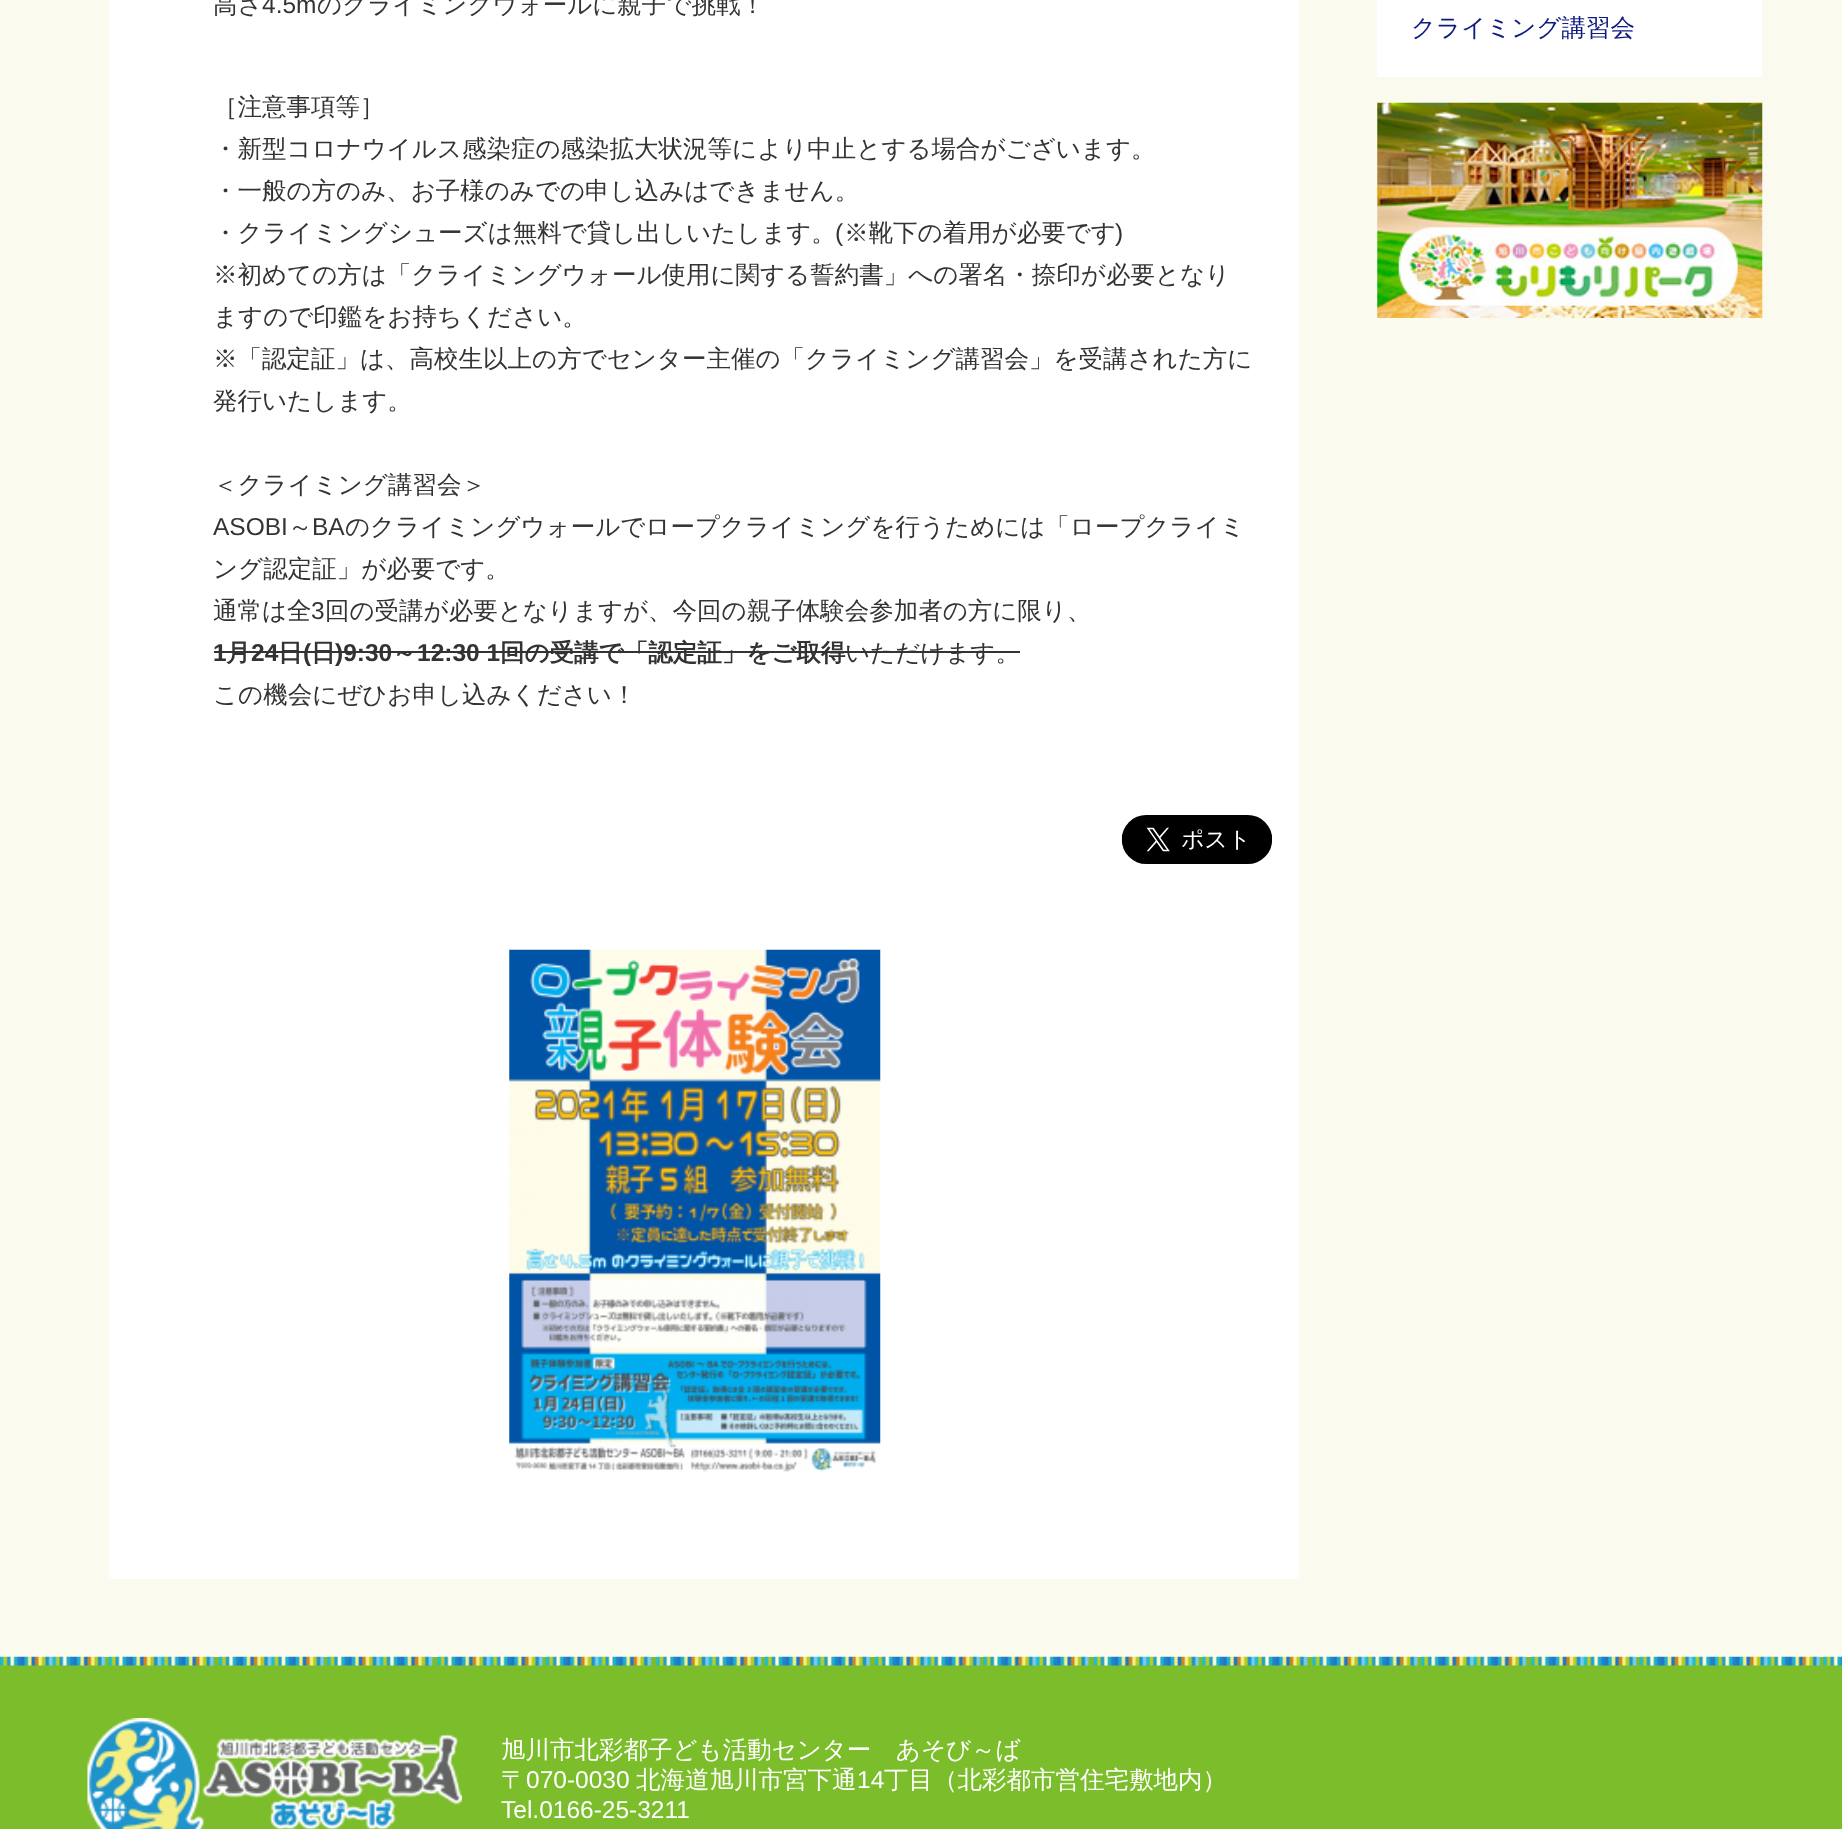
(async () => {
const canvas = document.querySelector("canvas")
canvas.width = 1842
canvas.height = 1829
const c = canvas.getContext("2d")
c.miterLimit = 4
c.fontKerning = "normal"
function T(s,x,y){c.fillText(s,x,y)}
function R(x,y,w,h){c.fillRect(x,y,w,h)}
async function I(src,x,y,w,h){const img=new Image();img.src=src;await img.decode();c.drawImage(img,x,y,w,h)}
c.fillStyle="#fbfaef"
R(0,0,1842,1829)
c.fillStyle="#fff"
R(109,0,1190,1579)
c.font="500 24.5px WenQuanYi Zen Hei"
c.fillStyle="#333"
T("高さ",213,13)
c.font="24.5px Liberation Sans"
T("4.5m",262,13)
c.font="500 24.5px WenQuanYi Zen Hei"
T("のクライミングウォールに親子で挑戦！",317,13)
T("［注意事項等］",213,115)
T("・新型コロナウイルス感染症の感染拡大状況等により中止とする場合がございます。",213,157)
T("・一般の方のみ、お子様のみでの申し込みはできません。",213,199)
T("・クライミングシューズは無料で貸し出しいたします。",213,241)
c.font="24.5px Liberation Sans"
T("(",835,241)
c.font="500 24.5px WenQuanYi Zen Hei"
T("※靴下の着用が必要です",844,241)
c.font="24.5px Liberation Sans"
T(")",1115,241)
c.font="500 24.5px WenQuanYi Zen Hei"
T("※初めての方は「クライミングウォール使用に関する誓約書」への署名・捺印が必要となり",213,283)
T("ますので印鑑をお持ちください。",213,325)
T("※「認定証」は、高校生以上の方でセンター主催の「クライミング講習会」を受講された方に",213,367)
T("発行いたします。",213,409)
T("＜クライミング講習会＞",213,493)
c.font="24.5px Liberation Sans"
T("ASOBI",213,535)
c.font="500 24.5px WenQuanYi Zen Hei"
T("～",288,535)
c.font="24.5px Liberation Sans"
T("BA",312,535)
c.font="500 24.5px WenQuanYi Zen Hei"
T("のクライミングウォールでロープクライミングを行うためには「ロープクライミ",345,535)
T("ング認定証」が必要です。",213,577)
T("通常は全",213,619)
c.font="24.5px Liberation Sans"
T("3",311,619)
c.font="500 24.5px WenQuanYi Zen Hei"
T("回の受講が必要となりますが、今回の親子体験会参加者の方に限り、",325,619)
c.font="bold 24.5px Liberation Sans"
T("1",213,661)
c.font="bold 24.5px WenQuanYi Zen Hei"
T("月",226,661)
c.font="bold 24.5px Liberation Sans"
T("24",251,661)
R(214,651,631,2)
c.font="bold 24.5px WenQuanYi Zen Hei"
T("日",278,661)
c.font="bold 24.5px Liberation Sans"
T("(",303,661)
c.font="bold 24.5px WenQuanYi Zen Hei"
T("日",311,661)
c.font="bold 24.5px Liberation Sans"
T(")9:30",335,661)
c.font="bold 24.5px WenQuanYi Zen Hei"
T("～",392,661)
c.font="bold 24.5px Liberation Sans"
T("12:30 1",417,661)
c.font="bold 24.5px WenQuanYi Zen Hei"
T("回の受講で「認定証」をご取得",500,661)
R(845,651,175,2)
c.font="500 24.5px WenQuanYi Zen Hei"
T("いただけます。",845,661)
T("この機会にぜひお申し込みください！",213,703)
await I("1.png",1121,815,151,49)
await I("2.png",509,949,372,523)
c.fillStyle="#fff"
R(1377,0,385,77)
c.fillStyle="#0e1a81"
T("クライミング講習会",1411,36)
await I("3.png",1377,102,386,216)
c.fillStyle="#7bbd2a"
R(0,1657,1842,172)
await I("4.png",0,1656,1842,10)
await I("5.png",87,1718,375,111)
c.fillStyle="#fff"
T("旭川市北彩都子ども活動センター　あそび～ば",501,1758)
T("〒",501,1788)
c.font="24.5px Liberation Sans"
T("070-0030",526,1788)
c.font="500 24.5px WenQuanYi Zen Hei"
T("北海道旭川市宮下通",636,1788)
c.font="24.5px Liberation Sans"
T("14",857,1788)
c.font="500 24.5px WenQuanYi Zen Hei"
T("丁目（北彩都市営住宅敷地内）",884,1788)
c.font="24.5px Liberation Sans"
T("Tel.0166-25-3211",501,1818)
})()
